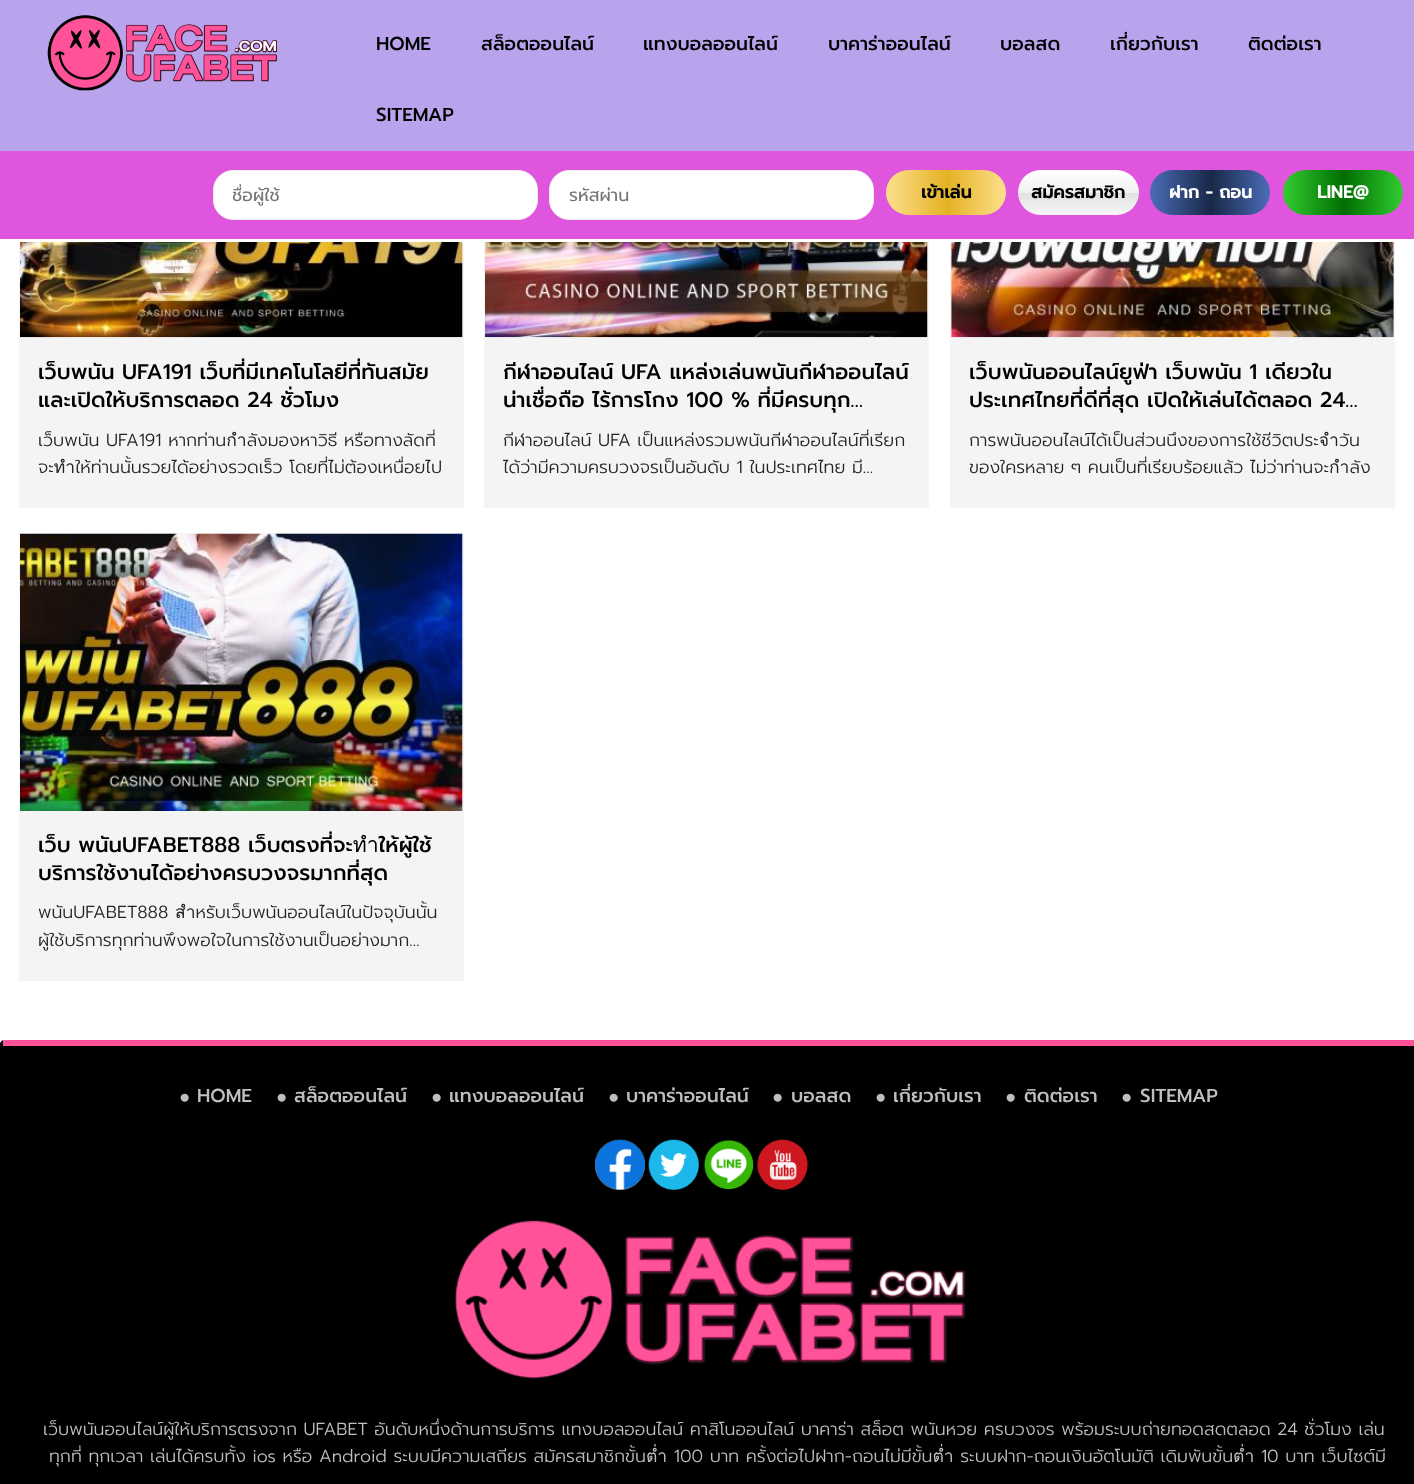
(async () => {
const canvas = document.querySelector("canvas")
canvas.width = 1414
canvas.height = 1484
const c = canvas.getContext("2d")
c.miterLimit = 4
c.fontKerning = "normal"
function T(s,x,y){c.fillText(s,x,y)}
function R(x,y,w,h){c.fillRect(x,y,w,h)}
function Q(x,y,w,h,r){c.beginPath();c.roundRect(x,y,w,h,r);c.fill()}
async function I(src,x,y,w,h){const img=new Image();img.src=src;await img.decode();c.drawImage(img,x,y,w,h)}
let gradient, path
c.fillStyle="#fff"
R(0,0,1414,1484)
c.fillStyle="#df55de"
R(0,151,1414,88)
c.fillStyle="#b8a3ec"
R(0,0,1414,151)
await I("1.png",47,15,230,76)
c.font="500 18.75px Prompt"
c.fillStyle="#000"
T("HOME",376,50)
T("สล็อตออนไลน์",481,50)
T("แทงบอลออนไลน์",643,50)
T("บาคาร่าออนไลน์",828,50)
T("บอลสด",1000,50)
T("เกี่ยวกับเรา",1110,50)
T("ติดต่อเรา",1248,50)
T("SITEMAP",376,121)
c.fillStyle="#fff"
c.beginPath()
c.roundRect(213.5,170.5,324,49,19.5)
c.fill()
c.strokeStyle="#eee"
c.stroke()
c.save()
c.beginPath()
c.rect(233,183,285,26)
c.clip()
c.font="17.5px Prompt"
c.fillStyle="#757575"
T("ชื่อผู้ใช้",232,201)
c.restore()
c.beginPath()
c.roundRect(549.5,170.5,324,49,19.5)
c.fill()
c.stroke()
c.font="17.5px Prompt"
c.fillStyle="#757575"
T("รหัสผ่าน",569,201)
gradient = c.createLinearGradient(886,193,1006,193)
gradient.addColorStop(0,"#fde08d")
gradient.addColorStop(.51,"#e4b224")
gradient.addColorStop(1,"#fde08d")
c.fillStyle = gradient
Q(886,170,120,45,22.5)
c.font="bold 17.5px Prompt"
c.fillStyle="#000"
T("เข้าเล่น",921,198)
gradient = c.createLinearGradient(1078,170,1078,215)
gradient.addColorStop(0,"#fff")
gradient.addColorStop(.5,"#f1f1f1")
gradient.addColorStop(.51,"#e1e1e1")
gradient.addColorStop(1,"#f6f6f6")
c.fillStyle = gradient
Q(1018,170,121,45,22.5)
c.fillStyle="#000"
T("สมัครสมาชิก",1031,198)
gradient = c.createLinearGradient(1150,193,1270,193)
gradient.addColorStop(0,"#4b6cb7")
gradient.addColorStop(.51,"#182848")
gradient.addColorStop(1,"#4b6cb7")
c.fillStyle = gradient
Q(1150,170,120,45,22.5)
c.fillStyle="#fff"
T("ฝาก - ถอน",1169,198)
gradient = c.createLinearGradient(1283,193,1403,193)
gradient.addColorStop(0,"#32cd32")
gradient.addColorStop(.51,"#006d00")
gradient.addColorStop(1,"#32cd32")
c.fillStyle = gradient
Q(1283,170,120,45,22.5)
c.fillStyle="#fff"
T("LINE@",1317,198)
c.fillStyle="#f4f4f4"
R(19,242,445,266)
await I("2.png",20,242,443,96)
c.save()
c.beginPath()
c.rect(38,358,407,56)
c.clip()
c.font="500 21.25px Prompt"
c.fillStyle="#000"
T("เว็บพนัน UFA191 เว็บที่มีเทคโนโลยีที่ทันสมัย",38,379)
c.restore()
c.font="500 21.25px Prompt"
c.fillStyle="#000"
T("และเปิดให้บริการตลอด 24 ชั่วโมง",38,407)
c.save()
c.beginPath()
c.rect(38,426,407,57)
c.clip()
c.font="300 17.5px Prompt"
c.fillStyle="#232323"
T("เว็บพนัน UFA191 หากท่านกำลังมองหาวิธี หรือทางลัดที่",38,446)
c.restore()
c.font="300 17.5px Prompt"
c.fillStyle="#232323"
T("จะทำให้ท่านนั้นรวยได้อย่างรวดเร็ว โดยที่ไม่ต้องเหนื่อยไป",38,473)
c.fillStyle="#f4f4f4"
R(484,242,445,266)
await I("3.png",485,242,443,96)
c.save()
c.beginPath()
c.rect(503,358,407,56)
c.clip()
c.font="500 21.25px Prompt"
c.fillStyle="#000"
T("กีฬาออนไลน์ UFA แหล่งเล่นพนันกีฬาออนไลน์",503,379)
T("น่าเชื่อถือ ไร้การโกง 100 % ที่มีครบทุก…",503,407)
c.restore()
c.save()
c.beginPath()
c.rect(503,426,407,57)
c.clip()
c.fillStyle="#232323"
T("กีฬาออนไลน์ UFA เป็นแหล่งรวมพนันกีฬาออนไลน์ที่เรียก",503,446)
c.restore()
c.fillStyle="#232323"
T("ได้ว่ามีความครบวงจรเป็นอันดับ 1 ในประเทศไทย มี…",503,473)
c.fillStyle="#f4f4f4"
R(950,242,445,266)
await I("4.png",951,242,443,96)
c.save()
c.beginPath()
c.rect(969,358,407,56)
c.clip()
c.font="500 21.25px Prompt"
c.fillStyle="#000"
T("เว็บพนันออนไลน์ยูฟ่า เว็บพนัน 1 เดียวใน",969,379)
c.restore()
c.font="500 21.25px Prompt"
c.fillStyle="#000"
T("ประเทศไทยที่ดีที่สุด เปิดให้เล่นได้ตลอด 24…",969,407)
c.font="300 17.5px Prompt"
c.fillStyle="#232323"
T("การพนันออนไลน์ได้เป็นส่วนนึงของการใช้ชีวิตประจำวัน",969,446)
T("ของใครหลาย ๆ คนเป็นที่เรียบร้อยแล้ว ไม่ว่าท่านจะกำลัง",969,473)
c.fillStyle="#f4f4f4"
R(19,533,445,448)
await I("5.png",20,533,443,278)
c.save()
c.beginPath()
c.rect(38,831,407,57)
c.clip()
c.font="500 21.25px Prompt"
c.fillStyle="#000"
T("เว็บ พนันUFABET888 เว็บตรงที่จะทำให้ผู้ใช้",38,852)
c.restore()
c.font="500 21.25px Prompt"
c.fillStyle="#000"
T("บริการใช้งานได้อย่างครบวงจรมากที่สุด",38,880)
c.font="300 17.5px Prompt"
c.fillStyle="#232323"
T("พนันUFABET888 สำหรับเว็บพนันออนไลน์ในปัจจุบันนั้น",38,918)
c.save()
c.beginPath()
c.rect(38,900,407,56)
c.clip()
T("ผู้ใช้บริการทุกท่านพึงพอใจในการใช้งานเป็นอย่างมาก…",38,946)
c.restore()
c.fillStyle="#000"
path = new Path2D("M4 1040h1407c2 0 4 2 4 4v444h-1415v-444c0-2 2-4 4-4z")
c.fill(path)
c.fillStyle="#ff5299"
R(3,1040,1411,6)
c.font="18.75px Liberation Sans"
c.fillStyle="#bfbfbf"
T("●",179,1103)
c.font="500 18.75px Prompt"
T("HOME",197,1102)
c.font="18.75px Liberation Sans"
T("●",276,1103)
c.font="500 18.75px Prompt"
T("สล็อตออนไลน์",294,1102)
c.font="18.75px Liberation Sans"
T("●",431,1103)
c.font="500 18.75px Prompt"
T("แทงบอลออนไลน์",449,1102)
c.font="18.75px Liberation Sans"
T("●",608,1103)
c.font="500 18.75px Prompt"
T("บาคาร่าออนไลน์",626,1102)
c.font="18.75px Liberation Sans"
T("●",772,1103)
c.font="500 18.75px Prompt"
T("บอลสด",791,1102)
c.font="18.75px Liberation Sans"
T("●",875,1103)
c.font="500 18.75px Prompt"
T("เกี่ยวกับเรา",893,1102)
c.font="18.75px Liberation Sans"
T("●",1005,1103)
c.font="500 18.75px Prompt"
T("ติดต่อเรา",1024,1102)
c.font="18.75px Liberation Sans"
T("●",1121,1103)
c.font="500 18.75px Prompt"
T("SITEMAP",1140,1102)
await I("6.png",595,1139,50,51)
await I("7.png",648,1139,51,51)
await I("8.png",703,1139,51,51)
await I("9.png",757,1139,51,51)
await I("10.png",455,1220,511,159)
c.font="300 17.5px Prompt"
T("เว็บพนันออนไลน์ผู้ให้บริการตรงจาก UFABET อันดับหนึ่งด้านการบริการ แทงบอลออนไลน์ คาสิโนออนไลน์ บาคาร่า สล็อต พนันหวย ครบวงจร พร้อมระบบถ่ายทอดสดตลอด 24 ชั่วโมง เล่น",43,1435)
T("ทุกที่ ทุกเวลา เล่นได้ครบทั้ง ios หรือ Android ระบบมีความเสถียร สมัครสมาชิกขั้นต่ำ 100 บาท ครั้งต่อไปฝาก-ถอนไม่มีขั้นต่ำ ระบบฝาก-ถอนเงินอัตโนมัติ เดิมพันขั้นต่ำ 10 บาท เว็บไซต์มี",49,1462)
})()
